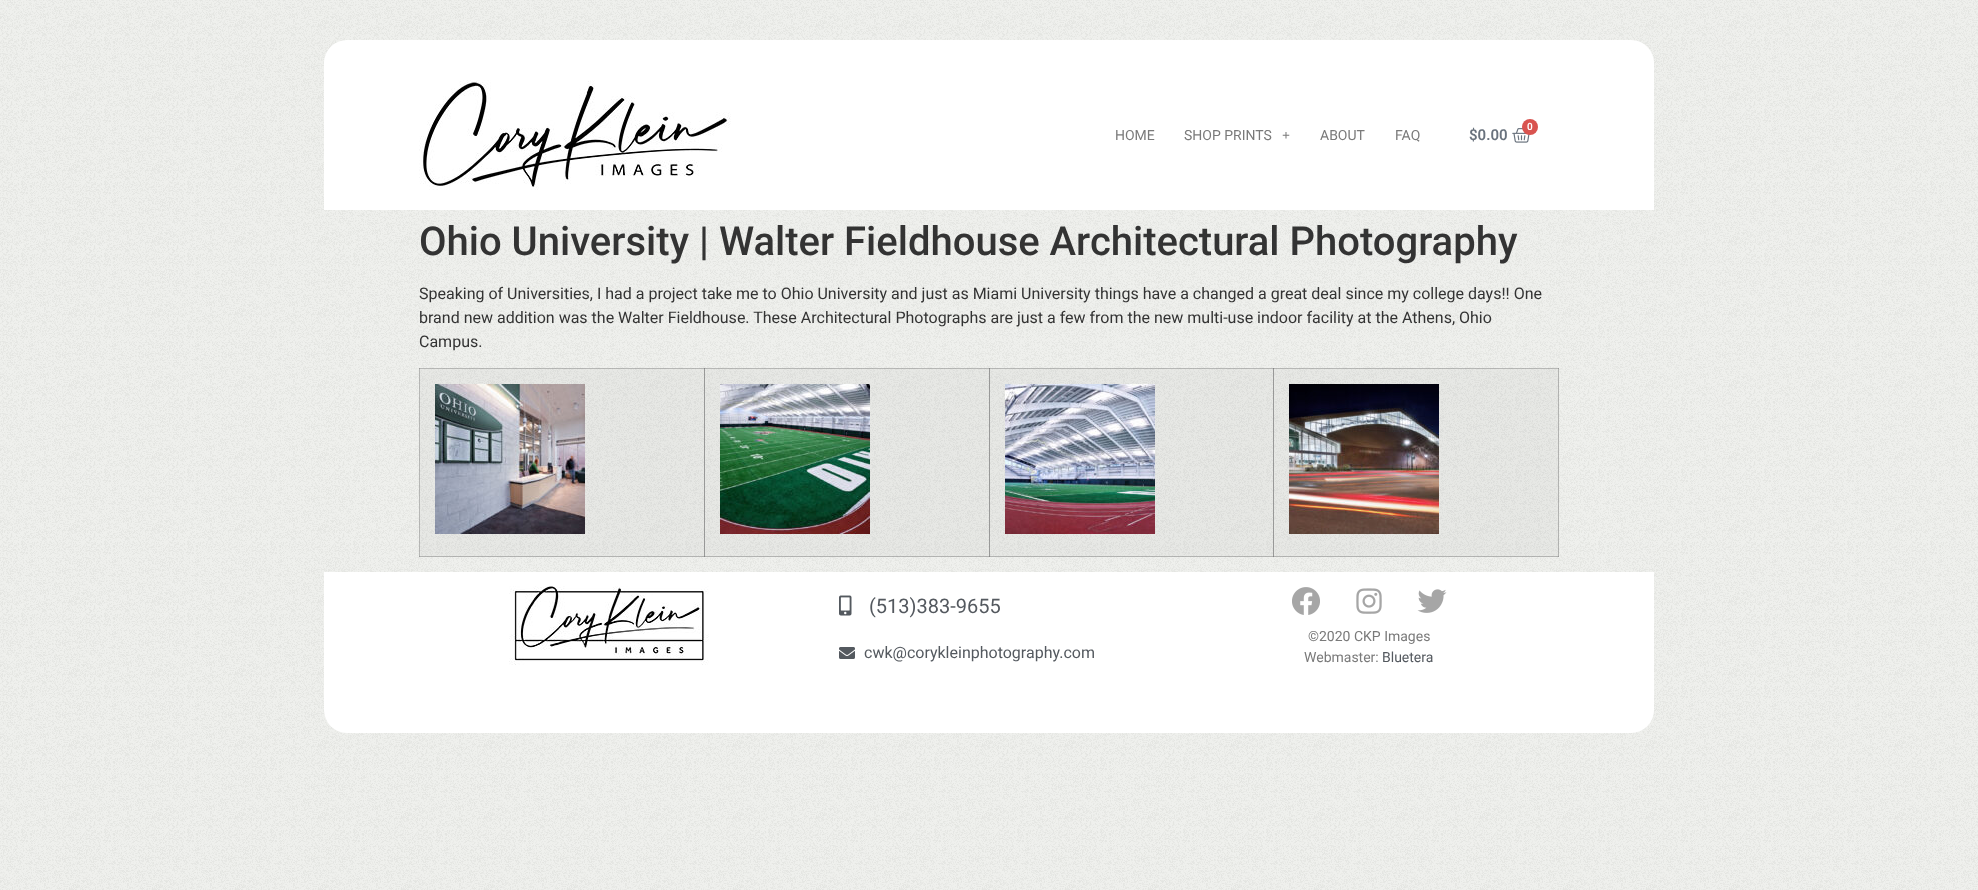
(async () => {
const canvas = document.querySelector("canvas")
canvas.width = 1978
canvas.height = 890
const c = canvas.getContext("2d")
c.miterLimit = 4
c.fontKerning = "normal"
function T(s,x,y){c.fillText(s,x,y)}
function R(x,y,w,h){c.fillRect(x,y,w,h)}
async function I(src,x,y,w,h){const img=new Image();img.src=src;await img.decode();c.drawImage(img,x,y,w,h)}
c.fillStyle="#fff"
R(0,0,1978,890)
await I("1.png",0,0,1978,890)
c.beginPath()
c.roundRect(324,40,1330,170,[23,23,0,0])
c.fill()
await I("2.png",419,80,312,110)
c.font="14px Roboto"
c.fillStyle="#7a7a7a"
T("HOME",1115,140)
T("SHOP PRINTS",1184,140)
c.font="bold 14px Liberation Serif"
T("+",1282,140)
c.font="14px Roboto"
T("ABOUT",1320,140)
T("FAQ",1395,140)
c.font="600 15px Roboto"
c.fillStyle="#69727d"
T("$0.00",1469,140)
await I("3.png",1512,128,18,15)
c.fillStyle="#d9534f"
c.beginPath()
c.arc(1530,127,8,0,7)
c.fill()
c.font="600 10px Roboto"
c.fillStyle="#fff"
T("0",1527,130)
c.font="500 40px Roboto"
c.fillStyle="#333"
T("Ohio University | Walter Fieldhouse Architectural Photography",419,255)
c.font="16px Roboto"
T("Speaking of Universities, I had a project take me to Ohio University and just as Miami University things have a changed a great deal since my college days!! One",419,299)
T("brand new addition was the Walter Fieldhouse. These Architectural Photographs are just a few from the new multi-use indoor facility at the Athens, Ohio",419,323)
T("Campus.",419,347)
c.fillStyle="#80808012"
R(420,369,284,188)
c.fillStyle="#80808080"
R(1273,368,286,1)
c.fillStyle="#80808012"
R(989,369,285,188)
R(1274,369,285,188)
c.fillStyle="#80808080"
R(1558,368,1,189)
R(1273,556,286,1)
R(1273,368,1,189)
R(989,368,285,1)
R(1273,368,1,189)
R(989,556,285,1)
R(989,368,1,189)
R(704,368,286,1)
c.fillStyle="#80808012"
R(704,369,285,188)
c.fillStyle="#80808080"
R(989,368,1,189)
R(704,556,286,1)
R(704,368,1,189)
R(419,368,286,1)
R(704,368,1,189)
R(419,556,286,1)
R(419,368,1,189)
await I("4.png",435,384,150,150)
await I("5.png",720,384,150,150)
await I("6.png",1005,384,150,150)
await I("7.png",1289,384,150,150)
c.fillStyle="#fff"
c.beginPath()
c.roundRect(324,572,1330,161,[0,0,23,23])
c.fill()
await I("8.png",509,586,200,79)
await I("9.png",839,595,13,21)
c.font="20px Roboto"
c.fillStyle="#54595f"
T("(513)383-9655",869,613)
await I("10.png",839,647,16,12)
c.font="16px Roboto"
T("cwk@corykleinphotography.com",864,658)
await I("11.png",1292,587,28,28)
await I("12.png",1356,588,26,26)
await I("13.png",1417,589,30,24)
c.font="14px Roboto"
c.fillStyle="#7a7a7a"
T("©2020 CKP Images",1308,641)
T("Webmaster:",1304,662)
c.fillStyle="#54595f"
T("Bluetera",1382,662)
})()
